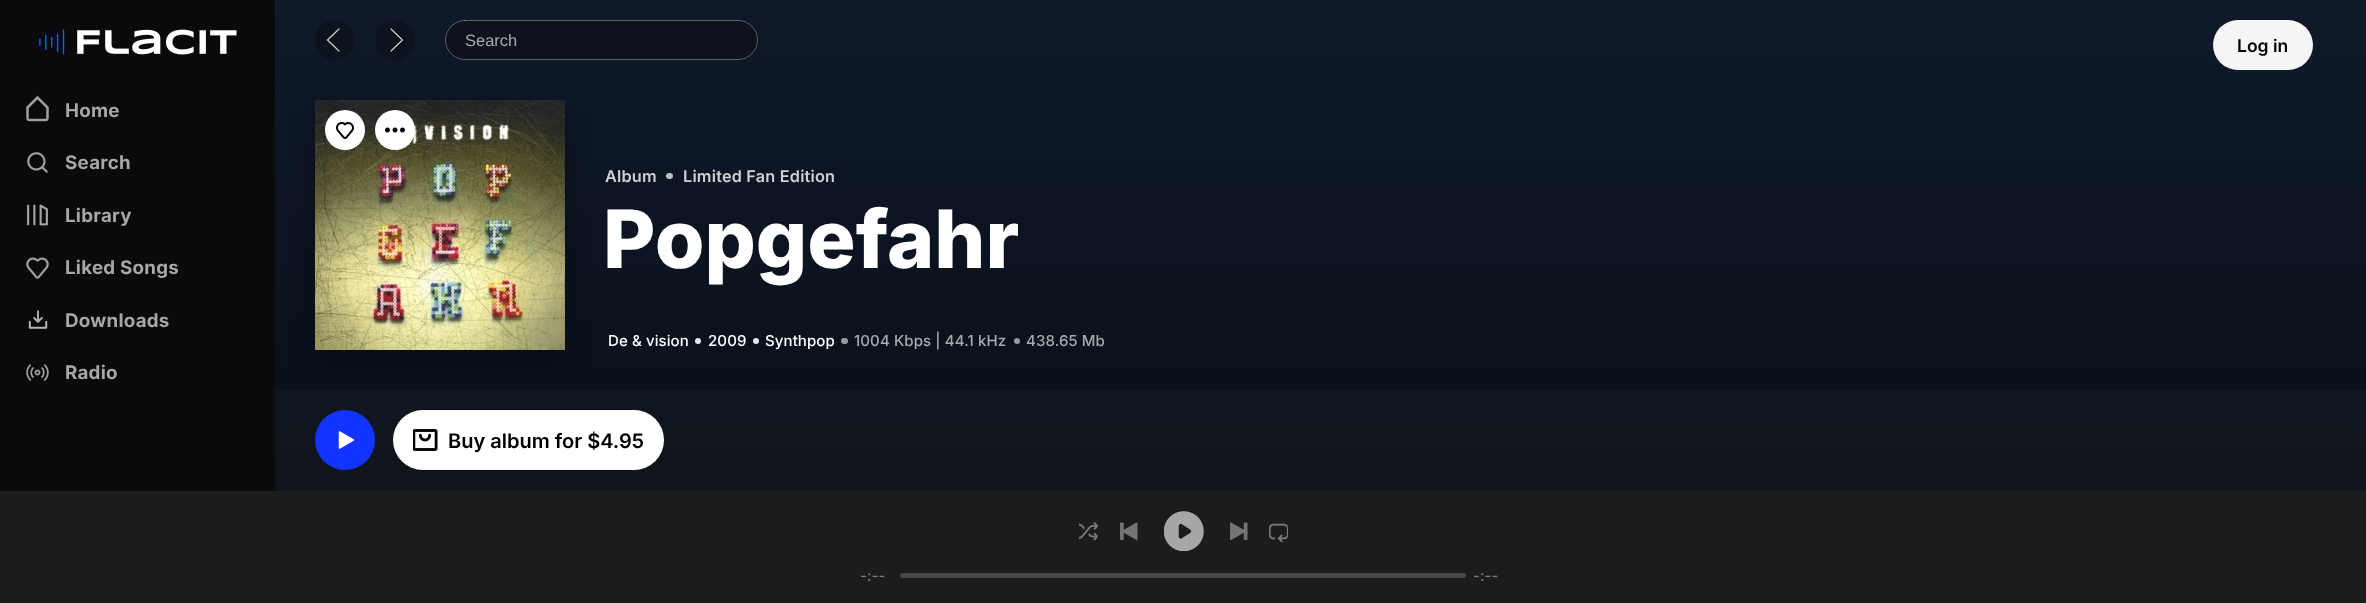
(async () => {
const canvas = document.querySelector("canvas")
canvas.width = 2366
canvas.height = 603
const c = canvas.getContext("2d")
c.miterLimit = 4
c.fontKerning = "normal"
function T(s,x,y){c.fillText(s,x,y)}
function R(x,y,w,h){c.fillRect(x,y,w,h)}
function Q(x,y,w,h,r){c.beginPath();c.roundRect(x,y,w,h,r);c.fill()}
async function I(src,x,y,w,h){const img=new Image();img.src=src;await img.decode();c.drawImage(img,x,y,w,h)}
let gradient, path
c.fillStyle="#fff"
R(0,0,2366,603)
gradient = c.createLinearGradient(1321,0,1321,390)
gradient.addColorStop(0,"#0f192a")
gradient.addColorStop(1,"#0a111c")
c.fillStyle = gradient
R(275,0,2091,390)
c.fillStyle="#0d131d"
c.beginPath()
c.arc(335,40,20,0,7)
c.fill()
path = new Path2D("M339 29l-11.5 11l11.5 11")
c.strokeStyle="#cfd1d4"
c.lineWidth=1.2
c.lineCap="round"
c.lineJoin="round"
c.stroke(path)
path = new Path2D("M395 60c-26 0-26-40 0-40c26 0 26 40 0 40z")
c.fill(path)
path = new Path2D("M391 51l11.5-11l-11.5-11")
c.stroke(path)
c.fillStyle="#0d121c"
Q(445,20,313,40,20)
c.beginPath()
c.roundRect(445.5,20.5,312,39,19.5)
c.strokeStyle="#ffffff52"
c.lineWidth=1
c.lineJoin="miter"
c.stroke()
c.font="16.5px Liberation Sans"
c.fillStyle="#a7aaae"
T("Search",465,46)
c.fillStyle="#f5f5f5"
Q(2213,20,100,50,25)
c.font="600 17.5px Inter"
c.fillStyle="#000"
T("Log in",2237,52)
c.fillStyle="#0a0a0a"
R(0,0,275,491)
await I("1.png",39,29,198,26)
path = new Path2D("M27.5 107.5l10-10l10 10v9.5c0 3.5-.5 3-4 3h-12c-3.5 0-4 .5-4-3z")
c.strokeStyle="#a0a0a0"
c.lineWidth=2.5
c.lineCap="butt"
c.stroke(path)
c.letterSpacing="0.25px"
c.font="bold 18.75px Inter"
c.fillStyle="#a7a7a7"
T("Home",65,117)
await I("2.png",27,152,21,21)
T("Search",65,169)
await I("3.png",27,204,21,22)
T("Library",65,222)
await I("4.png",26,257,23,22)
T("Liked Songs",65,274)
await I("5.png",28,310,20,19)
T("Downloads",65,327)
await I("6.png",26,364,23,17)
T("Radio",65,379)
gradient = c.createLinearGradient(1321,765,1321,390)
gradient.addColorStop(0,"#111")
gradient.addColorStop(1,"#101620")
c.fillStyle = gradient
R(275,390,2091,101)
c.fillStyle="#00000052"
c.filter="blur(12.5px)"
c.beginPath()
c.rect(315,110,250,250)
c.fill()
c.filter="none"
await I("7.png",315,100,250,250)
c.fillStyle="#fff"
c.beginPath()
c.arc(345,130,20,0,7)
c.fill()
await I("8.png",336,122,18,17)
c.beginPath()
c.arc(395,130,20,0,7)
c.fill()
await I("9.png",385,127,20,6)
c.letterSpacing="0.2px"
c.font="600 16.25px Inter"
c.fillStyle="#cfd0d3"
T("Album",605,182)
c.fillStyle="#bcbec1"
Q(666,173,7,6,3)
c.fillStyle="#cfd0d3"
T("Limited Fan Edition",683,182)
c.letterSpacing="0px"
c.font="800 80.5px Inter"
c.fillStyle="#fff"
T("Popgefahr",603,268)
c.letterSpacing="0.1px"
c.font="500 15px Inter"
T("De & vision",608,346)
c.fillStyle="#e8e8e8"
c.beginPath()
c.arc(698,341,3,0,7)
c.fill()
c.fillStyle="#fff"
T("2009",708,346)
c.fillStyle="#e8e8e8"
c.beginPath()
c.arc(756,341,3,0,7)
c.fill()
c.fillStyle="#fff"
T("Synthpop",765,346)
c.fillStyle="#989b9f"
Q(841,338,7,6,3)
c.fillStyle="#a7aaae"
T("1004 Kbps | 44.1 kHz",854,346)
c.fillStyle="#989b9f"
c.beginPath()
c.arc(1017,341,3,0,7)
c.fill()
c.fillStyle="#a7aaae"
T("438.65 Mb",1026,346)
c.fillStyle="#1333ff"
c.beginPath()
c.arc(345,440,30,0,7)
c.fill()
await I("10.png",338,431,17,18)
c.fillStyle="#fff"
Q(393,410,271,60,30)
await I("11.png",413,429,25,22)
c.letterSpacing="0px"
c.font="600 20px Inter"
c.fillStyle="#000"
T("Buy album for $4.95",448,448)
c.fillStyle="#1c1c1c"
R(0,491,2366,112)
await I("12.png",1079,522,19,19)
await I("13.png",1120,522,18,18)
await I("14.png",1164,511,40,40)
await I("15.png",1230,522,18,18)
await I("16.png",1269,523,20,20)
c.font="500 15px Inter"
c.fillStyle="#797979"
T("-:--",860,581)
c.fillStyle="#484848"
Q(900,573,566,5,2.5)
c.fillStyle="#797979"
T("-:--",1473,581)
})()
